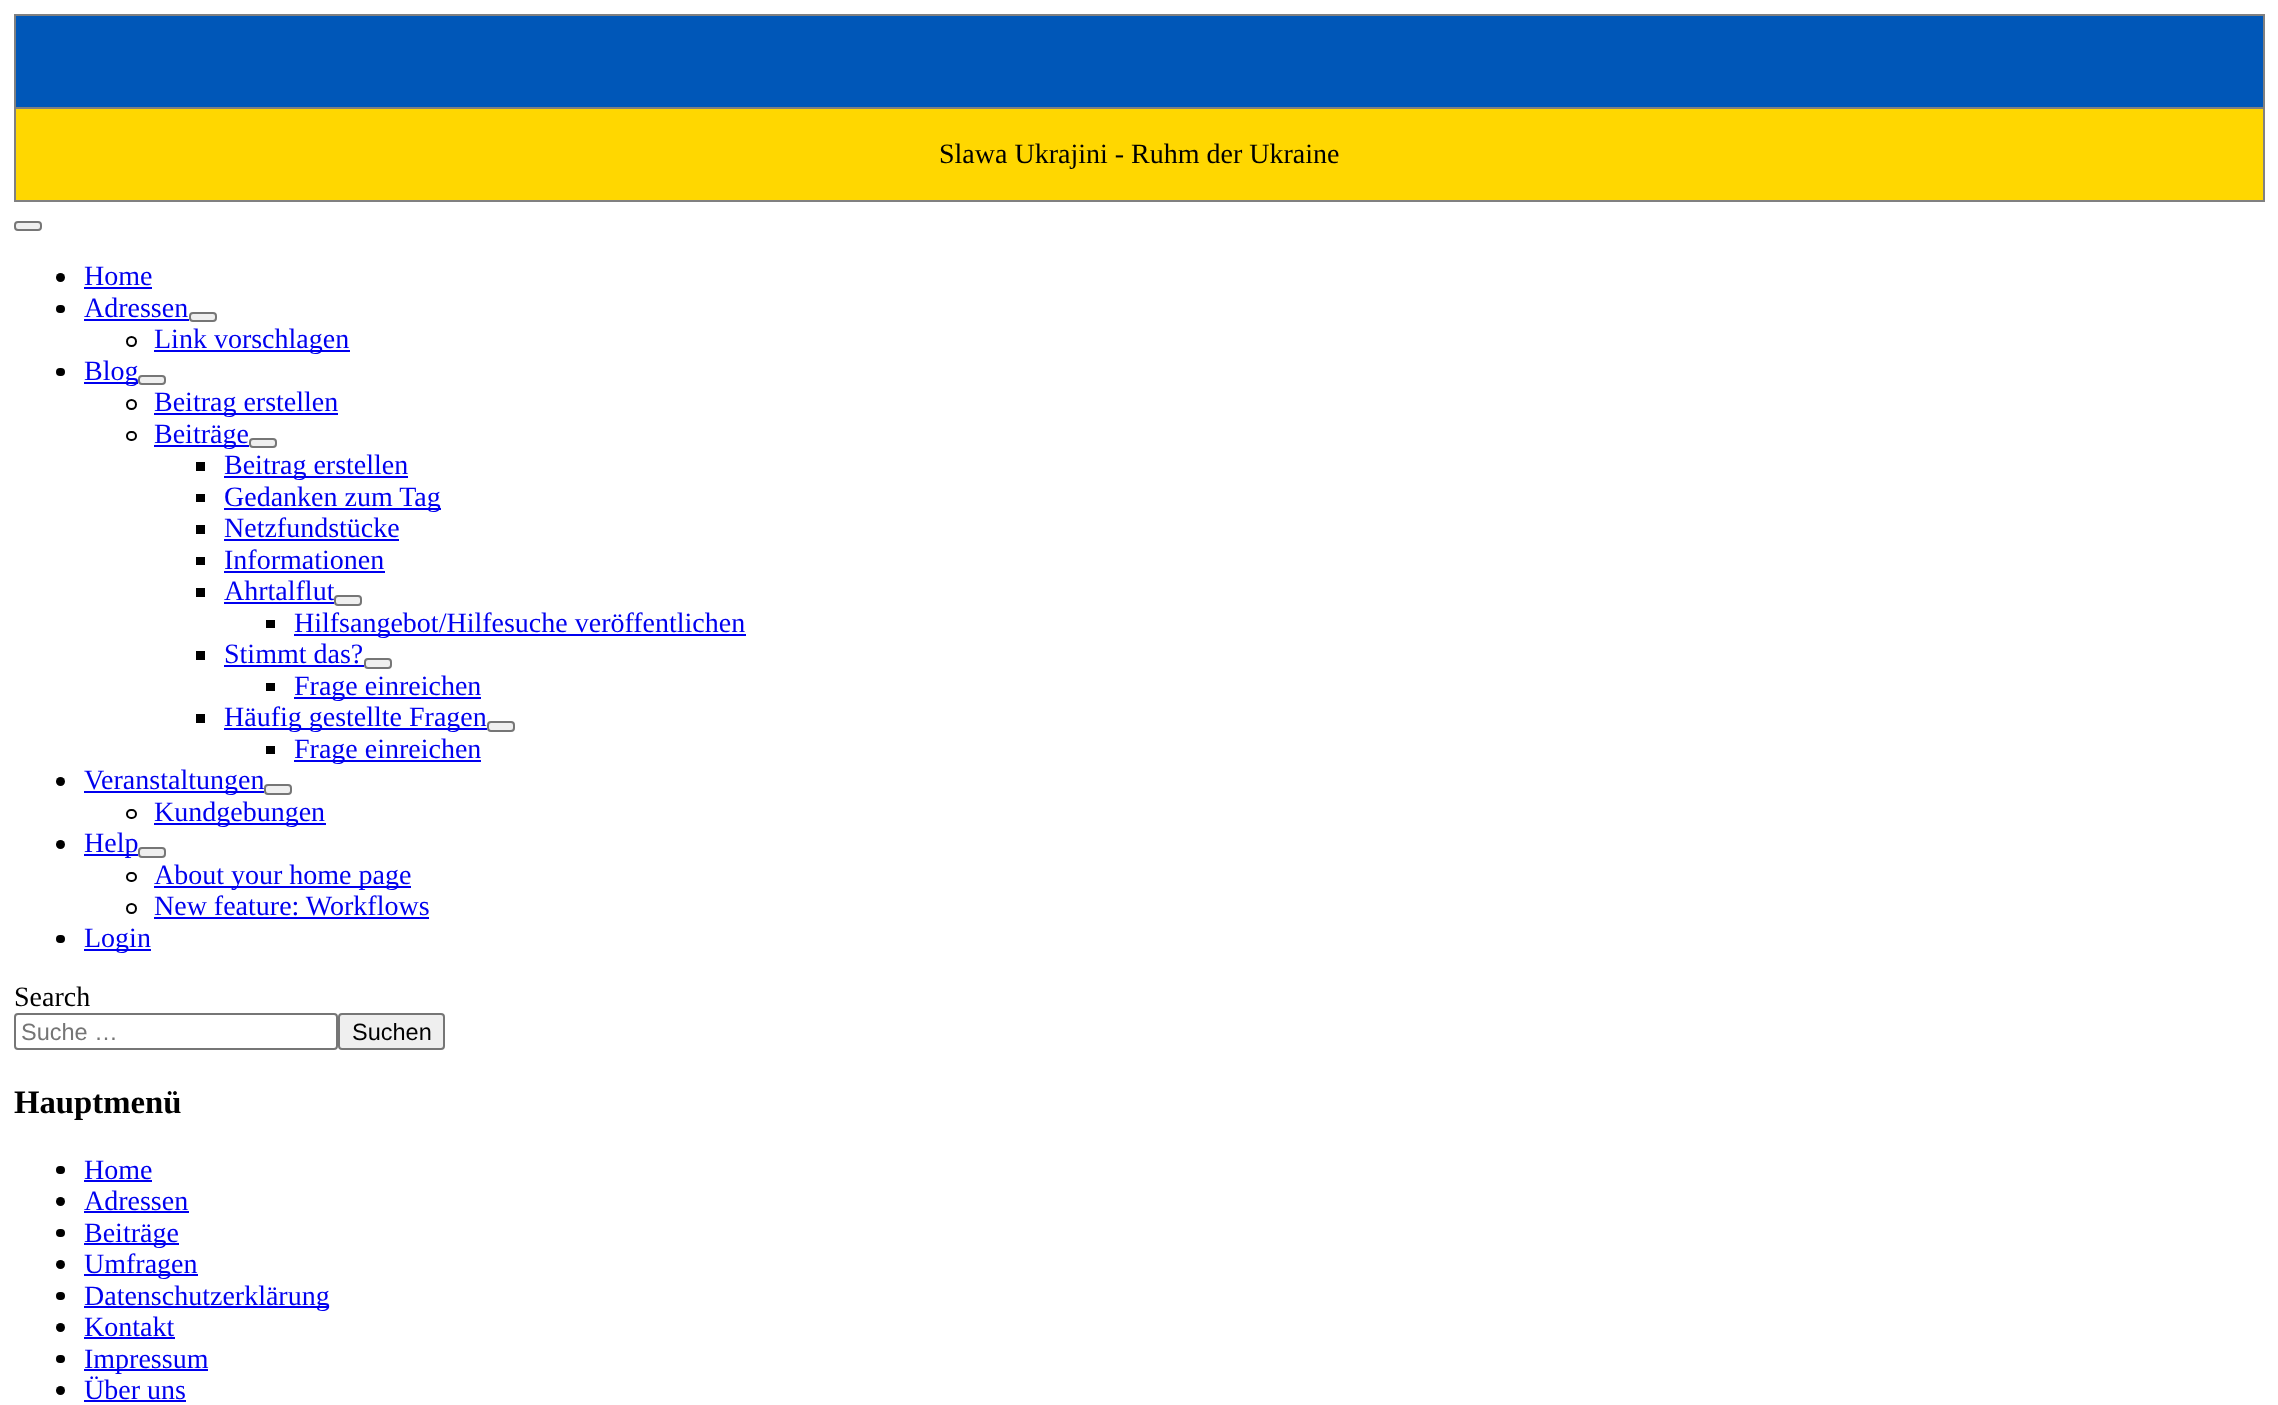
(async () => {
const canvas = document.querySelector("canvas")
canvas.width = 2278
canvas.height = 1405
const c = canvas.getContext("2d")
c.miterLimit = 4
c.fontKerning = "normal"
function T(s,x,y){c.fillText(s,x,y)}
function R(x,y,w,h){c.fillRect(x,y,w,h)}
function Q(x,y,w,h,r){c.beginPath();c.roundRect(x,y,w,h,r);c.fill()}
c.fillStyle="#fff"
R(0,0,2278,1405)
c.fillStyle="#808080"
R(14,14,2251,2)
R(2263,14,2,187)
R(14,200,2251,2)
R(14,14,2,187)
c.fillStyle="#0057b8"
R(16,16,2247,91)
c.fillStyle="#ffd700"
R(16,109,2247,91)
c.fillStyle="#808080"
R(14,107,2251,2)
c.font="28px Liberation Serif"
c.fillStyle="#000"
T("Slawa Ukrajini - Ruhm der Ukraine",939,163)
c.fillStyle="#efefef"
c.beginPath()
c.roundRect(15,222,26,8,3)
c.fill()
c.strokeStyle="#767676"
c.lineWidth=2
c.stroke()
c.fillStyle="#000"
c.beginPath()
c.arc(60.5,277.5,4.5,0,7)
c.fill()
c.fillStyle="#00e"
T("Home",84,285)
R(84,287,68,2)
c.fillStyle="#000"
Q(56,305,9,8,4)
c.fillStyle="#00e"
T("Adressen",84,317)
R(84,319,105,2)
c.fillStyle="#efefef"
c.beginPath()
c.roundRect(190,313,26,8,3)
c.fill()
c.stroke()
c.beginPath()
c.arc(131.5,341.5,4.5,0,7)
c.strokeStyle="#000"
c.stroke()
c.fillStyle="#00e"
R(154,350,196,2)
T("Link vorschlagen",154,348)
c.fillStyle="#000"
Q(56,368,9,8,4)
c.fillStyle="#00e"
R(84,382,54,2)
T("Blog",84,380)
c.fillStyle="#efefef"
c.beginPath()
c.roundRect(139,376,26,8,3)
c.fill()
c.strokeStyle="#767676"
c.stroke()
c.beginPath()
c.arc(131.5,404.5,4.5,0,7)
c.strokeStyle="#000"
c.stroke()
c.fillStyle="#00e"
R(154,413,184,2)
T("Beitrag erstellen",154,411)
c.beginPath()
c.roundRect(127,432,9,8,4)
c.stroke()
R(154,445,95,2)
T("Beiträge",154,443)
c.fillStyle="#efefef"
c.beginPath()
c.roundRect(250,439,26,8,3)
c.fill()
c.strokeStyle="#767676"
c.stroke()
c.fillStyle="#000"
R(196,462,9,9)
c.fillStyle="#00e"
R(224,476,184,2)
T("Beitrag erstellen",224,474)
c.fillStyle="#000"
R(196,494,9,8)
c.fillStyle="#00e"
R(224,508,217,2)
T("Gedanken zum Tag",224,506)
c.fillStyle="#000"
R(196,525,9,9)
c.fillStyle="#00e"
T("Netzfundstücke",224,537)
R(224,539,175,2)
c.fillStyle="#000"
R(196,557,9,8)
c.fillStyle="#00e"
T("Informationen",224,569)
R(224,571,161,2)
c.fillStyle="#000"
R(196,588,9,9)
c.fillStyle="#00e"
T("Ahrtalflut",224,600)
R(224,602,110,2)
c.fillStyle="#efefef"
c.beginPath()
c.roundRect(335,596,26,9,3)
c.fill()
c.stroke()
c.fillStyle="#000"
R(266,620,9,8)
c.fillStyle="#00e"
R(294,634,452,2)
T("Hilfsangebot/Hilfesuche veröffentlichen",294,632)
c.fillStyle="#000"
R(196,651,9,9)
c.fillStyle="#00e"
T("Stimmt das?",224,663)
R(224,665,140,2)
c.fillStyle="#efefef"
c.beginPath()
c.roundRect(365,659,26,9,3)
c.fill()
c.stroke()
c.fillStyle="#000"
R(266,683,9,8)
c.fillStyle="#00e"
R(294,697,187,2)
T("Frage einreichen",294,695)
c.fillStyle="#000"
R(196,714,9,9)
c.fillStyle="#00e"
R(224,728,263,2)
T("Häufig gestellte Fragen",224,726)
c.fillStyle="#efefef"
c.beginPath()
c.roundRect(488,722,26,9,3)
c.fill()
c.stroke()
c.fillStyle="#000"
R(266,746,9,8)
c.fillStyle="#00e"
R(294,760,187,2)
T("Frage einreichen",294,758)
c.fillStyle="#000"
c.beginPath()
c.arc(60.5,781.5,4.5,0,7)
c.fill()
c.fillStyle="#00e"
R(84,791,180,2)
T("Veranstaltungen",84,789)
c.fillStyle="#efefef"
c.beginPath()
c.roundRect(265,785,26,9,3)
c.fill()
c.stroke()
c.beginPath()
c.roundRect(127,810,9,8,4)
c.strokeStyle="#000"
c.stroke()
c.fillStyle="#00e"
R(154,823,172,2)
T("Kundgebungen",154,821)
c.fillStyle="#000"
c.beginPath()
c.arc(60.5,844.5,4.5,0,7)
c.fill()
c.fillStyle="#00e"
R(84,854,54,2)
T("Help",84,852)
c.fillStyle="#efefef"
c.beginPath()
c.roundRect(139,848,26,9,3)
c.fill()
c.strokeStyle="#767676"
c.stroke()
c.beginPath()
c.roundRect(127,873,9,8,4)
c.strokeStyle="#000"
c.stroke()
c.fillStyle="#00e"
R(154,886,257,2)
T("About your home page",154,884)
c.beginPath()
c.arc(131.5,908.5,4.5,0,7)
c.stroke()
T("New feature: Workflows",154,915)
R(154,917,275,2)
c.fillStyle="#000"
Q(56,935,9,8,4)
c.fillStyle="#00e"
R(84,949,67,2)
T("Login",84,947)
c.fillStyle="#000"
T("Search",14,1006)
c.beginPath()
c.roundRect(15,1014,322,35,3)
c.strokeStyle="#767676"
c.stroke()
c.font="23.5px Liberation Sans"
c.fillStyle="#757575"
T("Suche …",21,1040)
c.fillStyle="#efefef"
c.beginPath()
c.roundRect(339,1014,105,35,3)
c.fill()
c.stroke()
c.fillStyle="#000"
T("Suchen",352,1040)
c.font="bold 32.75px Liberation Serif"
T("Hauptmenü",14,1113)
Q(56,1166,9,8,4)
c.font="28px Liberation Serif"
c.fillStyle="#00e"
T("Home",84,1179)
R(84,1180,68,2)
c.fillStyle="#000"
c.beginPath()
c.arc(60.5,1201.5,4.5,0,7)
c.fill()
c.fillStyle="#00e"
T("Adressen",84,1210)
R(84,1211,105,2)
c.fillStyle="#000"
Q(56,1229,9,8,4)
c.fillStyle="#00e"
R(84,1243,95,2)
T("Beiträge",84,1242)
c.fillStyle="#000"
c.beginPath()
c.arc(60.5,1264.5,4.5,0,7)
c.fill()
c.fillStyle="#00e"
R(84,1274,114,2)
T("Umfragen",84,1273)
c.fillStyle="#000"
Q(56,1292,9,8,4)
c.fillStyle="#00e"
R(84,1306,245,2)
T("Datenschutzerklärung",84,1305)
c.fillStyle="#000"
c.beginPath()
c.arc(60.5,1327.5,4.5,0,7)
c.fill()
c.fillStyle="#00e"
T("Kontakt",84,1336)
R(84,1337,91,2)
c.fillStyle="#000"
Q(56,1355,9,8,4)
c.fillStyle="#00e"
R(84,1369,124,2)
T("Impressum",84,1368)
c.fillStyle="#000"
c.beginPath()
c.arc(60.5,1390.5,4.5,0,7)
c.fill()
c.fillStyle="#00e"
T("Über uns",84,1399)
R(84,1400,102,2)
})()
